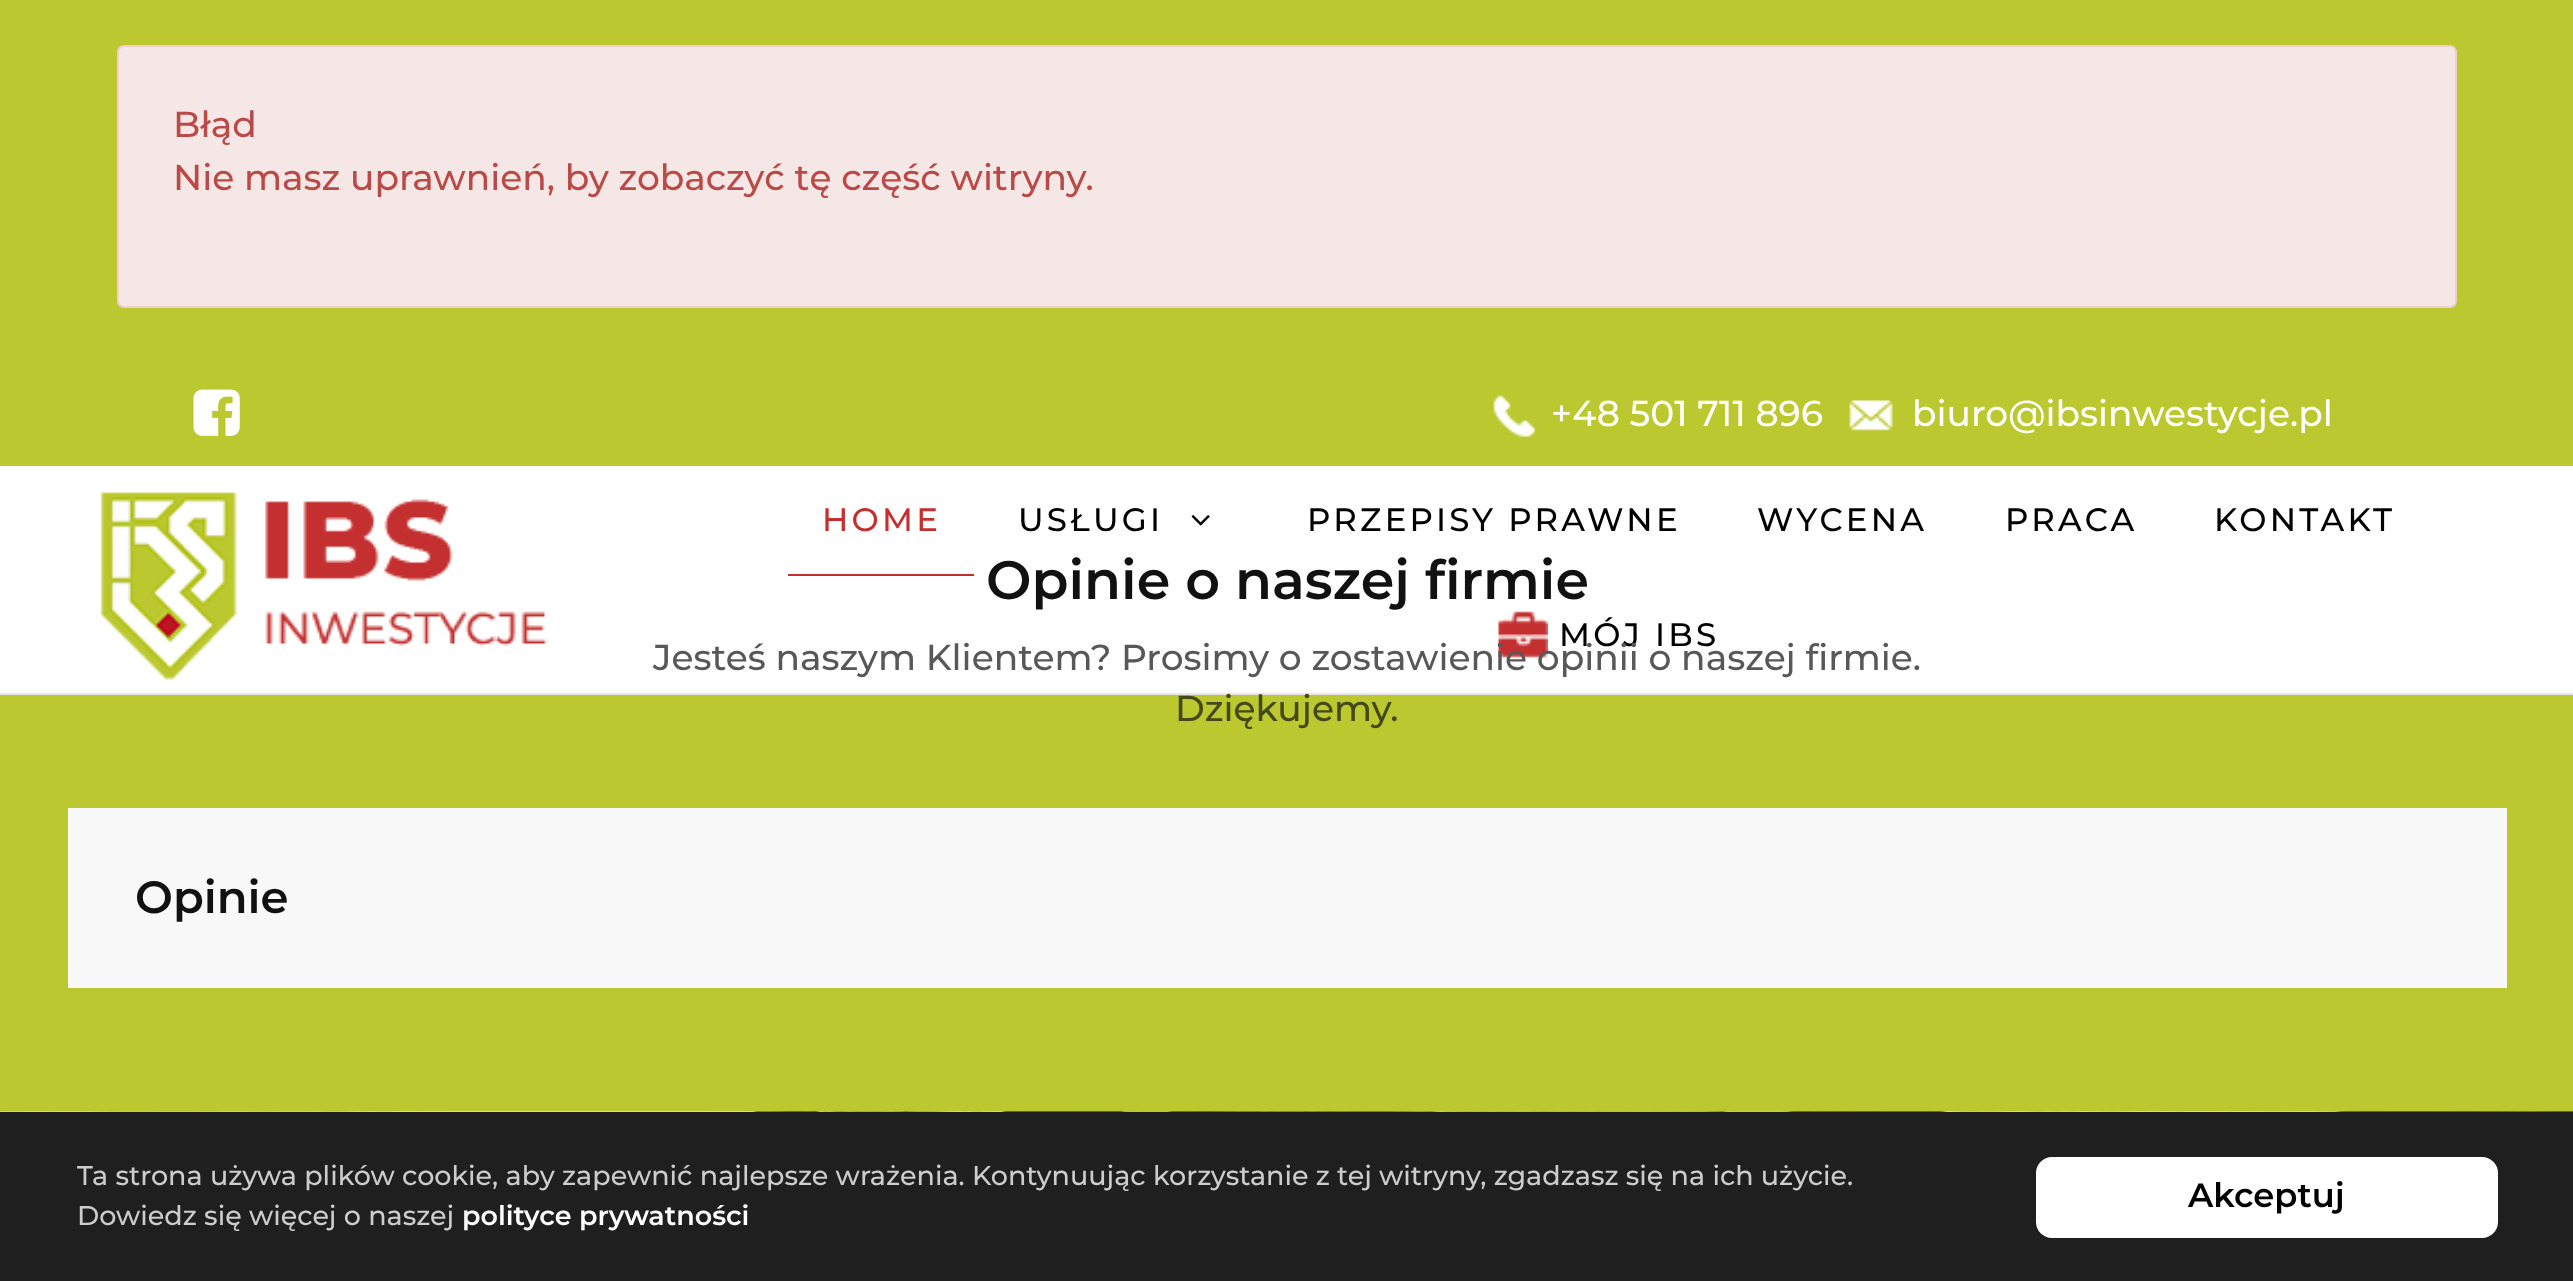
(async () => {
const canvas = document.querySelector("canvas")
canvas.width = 2573
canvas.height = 1281
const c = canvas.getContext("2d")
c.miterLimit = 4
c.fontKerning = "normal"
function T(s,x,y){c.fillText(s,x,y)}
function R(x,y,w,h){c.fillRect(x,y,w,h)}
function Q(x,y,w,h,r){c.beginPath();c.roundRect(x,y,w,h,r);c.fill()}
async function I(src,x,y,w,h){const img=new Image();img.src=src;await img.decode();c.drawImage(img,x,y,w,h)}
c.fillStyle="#bbc82f"
R(0,0,2573,1281)
c.fillStyle="#f6e7e7"
c.beginPath()
c.roundRect(118,46,2338,261,6)
c.fill()
c.strokeStyle="#edd1d0"
c.lineWidth=2
c.stroke()
c.font="100 36px Montserrat"
c.fillStyle="#b94a48"
T("Błąd",173,137)
T("Nie masz uprawnień, by zobaczyć tę część witryny.",173,190)
await I("1.png",193,389,47,47)
await I("2.png",1493,395,43,43)
c.fillStyle="#fff"
T("+48 501 711 896",1551,426)
await I("3.png",1849,400,44,31)
T("biuro@ibsinwestycje.pl",1912,426)
R(0,466,2573,227)
c.fillStyle="#e7e7e7"
R(0,693,2573,2)
await I("4.png",100,492,448,189)
c.fillStyle="#c3302f"
R(788,574,186,2)
c.letterSpacing="3.25px"
c.font="100 32.4px Montserrat"
T("HOME",822,531)
c.fillStyle="#000"
T("USŁUGI",1018,531)
await I("5.png",1191,515,19,11)
T("PRZEPISY PRAWNE",1307,531)
T("WYCENA",1757,531)
T("PRACA",2005,531)
T("KONTAKT",2214,531)
await I("6.png",1498,611,50,47)
T("MÓJ IBS",1559,646)
c.letterSpacing="0px"
c.font="100 54px 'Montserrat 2'"
c.fillStyle="#111"
T("Opinie o naszej firmie",986,599)
c.font="100 36px Montserrat"
c.fillStyle="#585858"
T("Jesteś naszym Klientem? Prosimy o zostawienie opinii o naszej firmie.",653,670)
c.fillStyle="#44481a"
T("Dziękujemy.",1175,721)
c.fillStyle="#f8f8f8"
R(68,808,2439,180)
c.font="100 45px 'Montserrat 2'"
c.fillStyle="#111"
T("Opinie",135,913)
await I("7.png",0,1111,2573,1)
c.fillStyle="#1f1f1f"
R(0,1112,2573,169)
c.font="100 27px Montserrat"
c.fillStyle="#ccc"
T("Ta strona używa plików cookie, aby zapewnić najlepsze wrażenia. Kontynuując korzystanie z tej witryny, zgadzasz się na ich użycie.",77,1185)
T("Dowiedz się więcej o naszej",77,1225)
c.font="100 27px 'Montserrat 2'"
c.fillStyle="#fff"
T("polityce prywatności",462,1225)
Q(2036,1157,462,81,16)
c.font="100 33.75px 'Montserrat 2'"
c.fillStyle="#000"
T("Akceptuj",2188,1207)
})()
